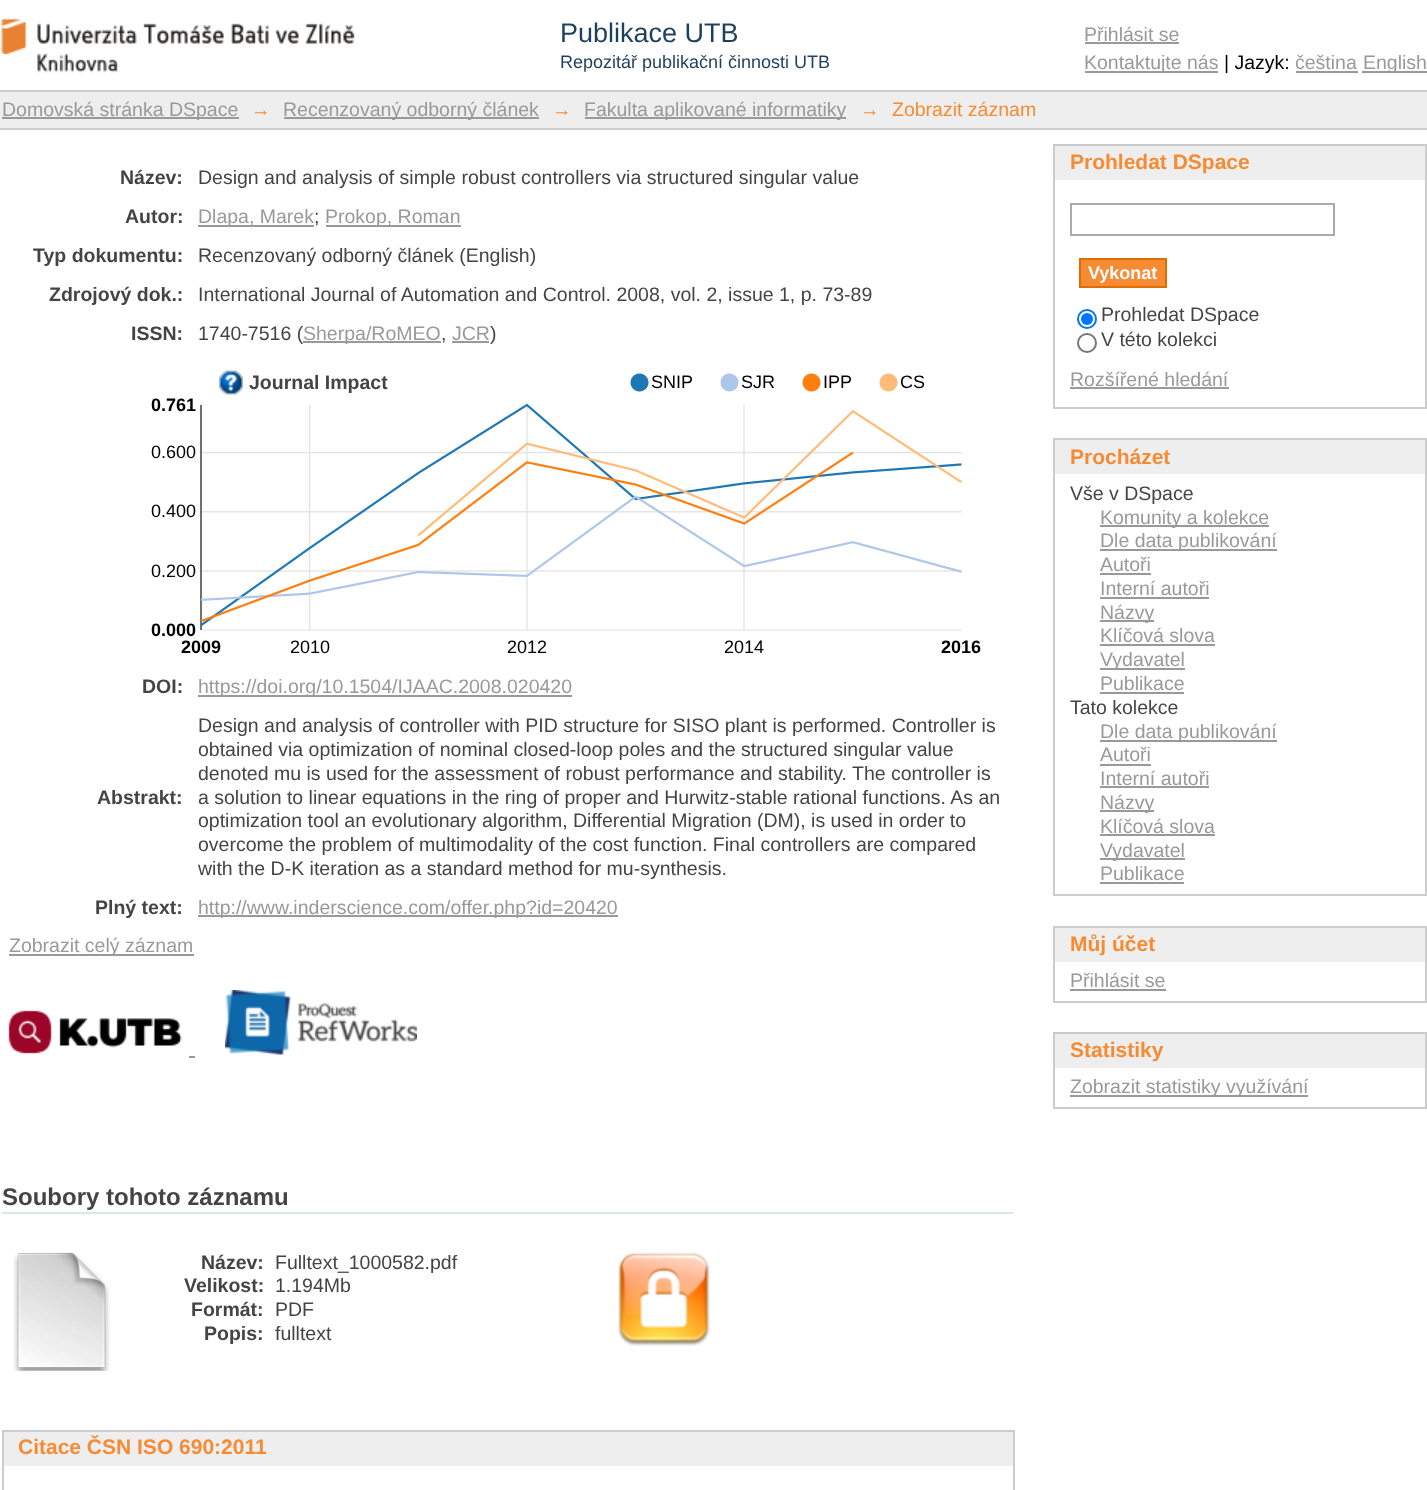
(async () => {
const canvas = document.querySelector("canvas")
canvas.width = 1427
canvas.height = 1490
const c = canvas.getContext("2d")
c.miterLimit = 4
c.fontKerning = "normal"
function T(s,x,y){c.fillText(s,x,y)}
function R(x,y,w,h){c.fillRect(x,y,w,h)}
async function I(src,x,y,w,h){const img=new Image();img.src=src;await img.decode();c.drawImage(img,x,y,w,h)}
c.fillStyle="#fff"
R(0,0,1427,1490)
await I("1.png",1,18,354,55)
c.font="27px Liberation Sans"
c.fillStyle="#1f3f5e"
T("Publikace UTB",560,42)
c.font="18px Liberation Sans"
T("Repozitář publikační činnosti UTB",560,68)
c.font="19.5px Liberation Sans"
c.fillStyle="#999"
T("Přihlásit se",1084,41)
R(1085,42,94,2)
R(1085,71,133,2)
T("Kontaktujte nás",1084,69)
c.fillStyle="#000"
T("| Jazyk:",1224,69)
c.fillStyle="#999"
T("čeština",1295,69)
R(1296,71,62,2)
R(1362,71,65,2)
T("English",1363,69)
c.fillStyle="#eee"
R(0,92,1427,36)
c.fillStyle="#ccc"
R(0,90,1427,2)
R(0,128,1427,2)
c.fillStyle="#999"
R(2,117,237,2)
T("Domovská stránka DSpace",2,116)
c.fillStyle="#f68b33"
T("→",251,116)
c.fillStyle="#999"
R(284,117,255,2)
T("Recenzovaný odborný článek",283,116)
c.fillStyle="#f68b33"
T("→",552,116)
c.fillStyle="#999"
R(585,117,261,2)
T("Fakulta aplikované informatiky",584,116)
c.fillStyle="#f68b33"
T("→",860,116)
T("Zobrazit záznam",892,116)
c.font="bold 19.5px Liberation Sans"
c.fillStyle="#444"
T("Název:",120,184)
c.font="19.5px Liberation Sans"
T("Design and analysis of simple robust controllers via structured singular value",198,184)
c.font="bold 19.5px Liberation Sans"
T("Autor:",125,223)
c.fillStyle="#999"
R(198,225,116,2)
c.font="19.5px Liberation Sans"
T("Dlapa, Marek",198,223)
c.fillStyle="#444"
T(";",314,223)
c.fillStyle="#999"
R(326,225,135,2)
T("Prokop, Roman",325,223)
c.font="bold 19.5px Liberation Sans"
c.fillStyle="#444"
T("Typ dokumentu:",33,262)
c.font="19.5px Liberation Sans"
T("Recenzovaný odborný článek (English)",198,262)
c.font="bold 19.5px Liberation Sans"
T("Zdrojový dok.:",49,301)
c.font="19.5px Liberation Sans"
T("International Journal of Automation and Control. 2008, vol. 2, issue 1, p. 73-89",198,301)
c.font="bold 19.5px Liberation Sans"
T("ISSN:",131,340)
c.font="19.5px Liberation Sans"
T("1740-7516 (",198,340)
c.fillStyle="#999"
R(303,341,138,2)
T("Sherpa/RoMEO",303,340)
c.fillStyle="#444"
T(",",441,340)
c.fillStyle="#999"
T("JCR",452,340)
R(452,341,37,2)
c.fillStyle="#444"
T(")",490,340)
await I("3.png",200,373,762,258)
await I("2.png",219,370,24,25)
c.font="bold 19.5px Liberation Sans"
T("Journal Impact",249,389)
c.font="18px Liberation Sans"
c.fillStyle="#000"
T("SNIP",651,388)
T("SJR",741,388)
T("IPP",823,388)
T("CS",900,388)
c.font="bold 18px Liberation Sans"
T("0.761",151,411)
c.font="18px Liberation Sans"
T("0.600",151,458)
T("0.400",151,517)
T("0.200",151,577)
c.font="bold 18px Liberation Sans"
T("0.000",151,636)
T("2009",181,653)
c.font="18px Liberation Sans"
T("2010",290,653)
T("2012",507,653)
T("2014",724,653)
c.font="bold 18px Liberation Sans"
T("2016",941,653)
c.font="bold 19.5px Liberation Sans"
c.fillStyle="#444"
T("DOI:",142,693)
c.fillStyle="#999"
R(198,695,374,2)
c.font="19.5px Liberation Sans"
T("https://doi.org/10.1504/IJAAC.2008.020420",198,693)
c.font="bold 19.5px Liberation Sans"
c.fillStyle="#444"
T("Abstrakt:",97,804)
c.font="19.5px Liberation Sans"
T("Design and analysis of controller with PID structure for SISO plant is performed. Controller is",198,732)
T("obtained via optimization of nominal closed-loop poles and the structured singular value",198,756)
T("denoted mu is used for the assessment of robust performance and stability. The controller is",198,780)
T("a solution to linear equations in the ring of proper and Hurwitz-stable rational functions. As an",198,804)
T("optimization tool an evolutionary algorithm, Differential Migration (DM), is used in order to",198,827)
T("overcome the problem of multimodality of the cost function. Final controllers are compared",198,851)
T("with the D-K iteration as a standard method for mu-synthesis.",198,875)
c.font="bold 19.5px Liberation Sans"
T("Plný text:",95,914)
c.fillStyle="#999"
R(198,915,420,2)
c.font="19.5px Liberation Sans"
T("http://www.inderscience.com/offer.php?id=20420",198,914)
R(9,954,185,2)
T("Zobrazit celý záznam",9,952)
await I("4.png",8,1010,174,44)
await I("5.png",225,990,192,65)
R(189,1056,6,2)
c.fillStyle="#d8e8eb"
R(2,1212,1012,2)
c.font="bold 24px Liberation Sans"
c.fillStyle="#444"
T("Soubory tohoto záznamu",2,1205)
await I("6.png",13,1252,97,119)
c.font="bold 19.5px Liberation Sans"
T("Název:",201,1269)
c.font="19.5px Liberation Sans"
T("Fulltext_1000582.pdf",275,1269)
c.font="bold 19.5px Liberation Sans"
T("Velikost:",184,1292)
c.font="19.5px Liberation Sans"
T("1.194Mb",275,1292)
c.font="bold 19.5px Liberation Sans"
T("Formát:",191,1316)
c.font="19.5px Liberation Sans"
T("PDF",275,1316)
c.font="bold 19.5px Liberation Sans"
T("Popis:",204,1340)
c.font="19.5px Liberation Sans"
T("fulltext",275,1340)
await I("7.png",618,1252,92,94)
c.fillStyle="#eee"
R(4,1432,1009,34)
c.fillStyle="#ccc"
R(2,1430,1012,2)
R(1013,1430,2,60)
R(2,1430,2,60)
c.font="bold 21px Liberation Sans"
c.fillStyle="#f68b33"
T("Citace ČSN ISO 690:2011",18,1454)
c.fillStyle="#eee"
R(1055,146,370,34)
c.fillStyle="#ccc"
R(1053,144,374,2)
R(1425,144,2,264)
R(1053,144,2,36)
c.fillStyle="#f68b33"
T("Prohledat DSpace",1070,169)
c.fillStyle="#ccc"
R(1053,407,374,2)
R(1053,180,2,228)
c.strokeStyle="#aaa"
c.lineWidth=2
c.strokeRect(1071,204,263,31)
c.fillStyle="#f68b33"
c.beginPath()
c.rect(1080,259,86,28)
c.fill()
c.strokeStyle="#df6e00"
c.stroke()
c.font="bold 18px Liberation Sans"
c.fillStyle="#fff"
T("Vykonat",1088,279)
c.beginPath()
c.arc(1087,319,9,0,7)
c.strokeStyle="#0075ff"
c.stroke()
c.fillStyle="#0075ff"
c.beginPath()
c.arc(1087,319,6,0,7)
c.fill()
c.font="19.5px Liberation Sans"
c.fillStyle="#444"
T("Prohledat DSpace",1101,321)
c.beginPath()
c.arc(1087,343,9,0,7)
c.strokeStyle="#767676"
c.stroke()
T("V této kolekci",1101,346)
c.fillStyle="#999"
T("Rozšířené hledání",1070,386)
R(1070,387,159,2)
c.fillStyle="#eee"
R(1055,440,370,34)
c.fillStyle="#ccc"
R(1053,438,374,2)
R(1425,438,2,458)
R(1053,438,2,36)
c.font="bold 21px Liberation Sans"
c.fillStyle="#f68b33"
T("Procházet",1070,464)
c.fillStyle="#ccc"
R(1053,894,374,2)
R(1053,474,2,422)
c.font="19.5px Liberation Sans"
c.fillStyle="#444"
T("Vše v DSpace",1070,500)
c.fillStyle="#999"
R(1100,525,169,2)
T("Komunity a kolekce",1100,524)
R(1100,549,177,2)
T("Dle data publikování",1100,547)
T("Autoři",1100,571)
R(1100,573,51,2)
T("Interní autoři",1100,595)
R(1100,597,109,2)
R(1100,620,54,2)
T("Názvy",1100,619)
T("Klíčová slova",1100,642)
R(1100,644,115,2)
R(1100,668,85,2)
T("Vydavatel",1100,666)
T("Publikace",1100,690)
R(1100,692,84,2)
c.fillStyle="#444"
T("Tato kolekce",1070,714)
c.fillStyle="#999"
R(1100,740,177,2)
T("Dle data publikování",1100,738)
T("Autoři",1100,761)
R(1100,764,51,2)
T("Interní autoři",1100,785)
R(1100,786,109,2)
R(1100,810,54,2)
T("Názvy",1100,809)
T("Klíčová slova",1100,833)
R(1100,834,115,2)
R(1100,858,85,2)
T("Vydavatel",1100,857)
T("Publikace",1100,880)
R(1100,882,84,2)
c.fillStyle="#eee"
R(1055,928,370,34)
c.fillStyle="#ccc"
R(1053,926,374,2)
R(1425,926,2,76)
R(1053,926,2,36)
c.font="bold 21px Liberation Sans"
c.fillStyle="#f68b33"
T("Můj účet",1070,951)
c.fillStyle="#ccc"
R(1053,1001,374,2)
R(1053,962,2,40)
c.font="19.5px Liberation Sans"
c.fillStyle="#999"
T("Přihlásit se",1070,987)
R(1070,989,96,2)
c.fillStyle="#eee"
R(1055,1034,370,34)
c.fillStyle="#ccc"
R(1053,1032,374,2)
R(1425,1032,2,77)
R(1053,1032,2,36)
c.font="bold 21px Liberation Sans"
c.fillStyle="#f68b33"
T("Statistiky",1070,1057)
c.fillStyle="#ccc"
R(1053,1107,374,2)
R(1053,1068,2,41)
c.fillStyle="#999"
R(1070,1095,238,2)
c.font="19.5px Liberation Sans"
T("Zobrazit statistiky využívání",1070,1093)
})()
